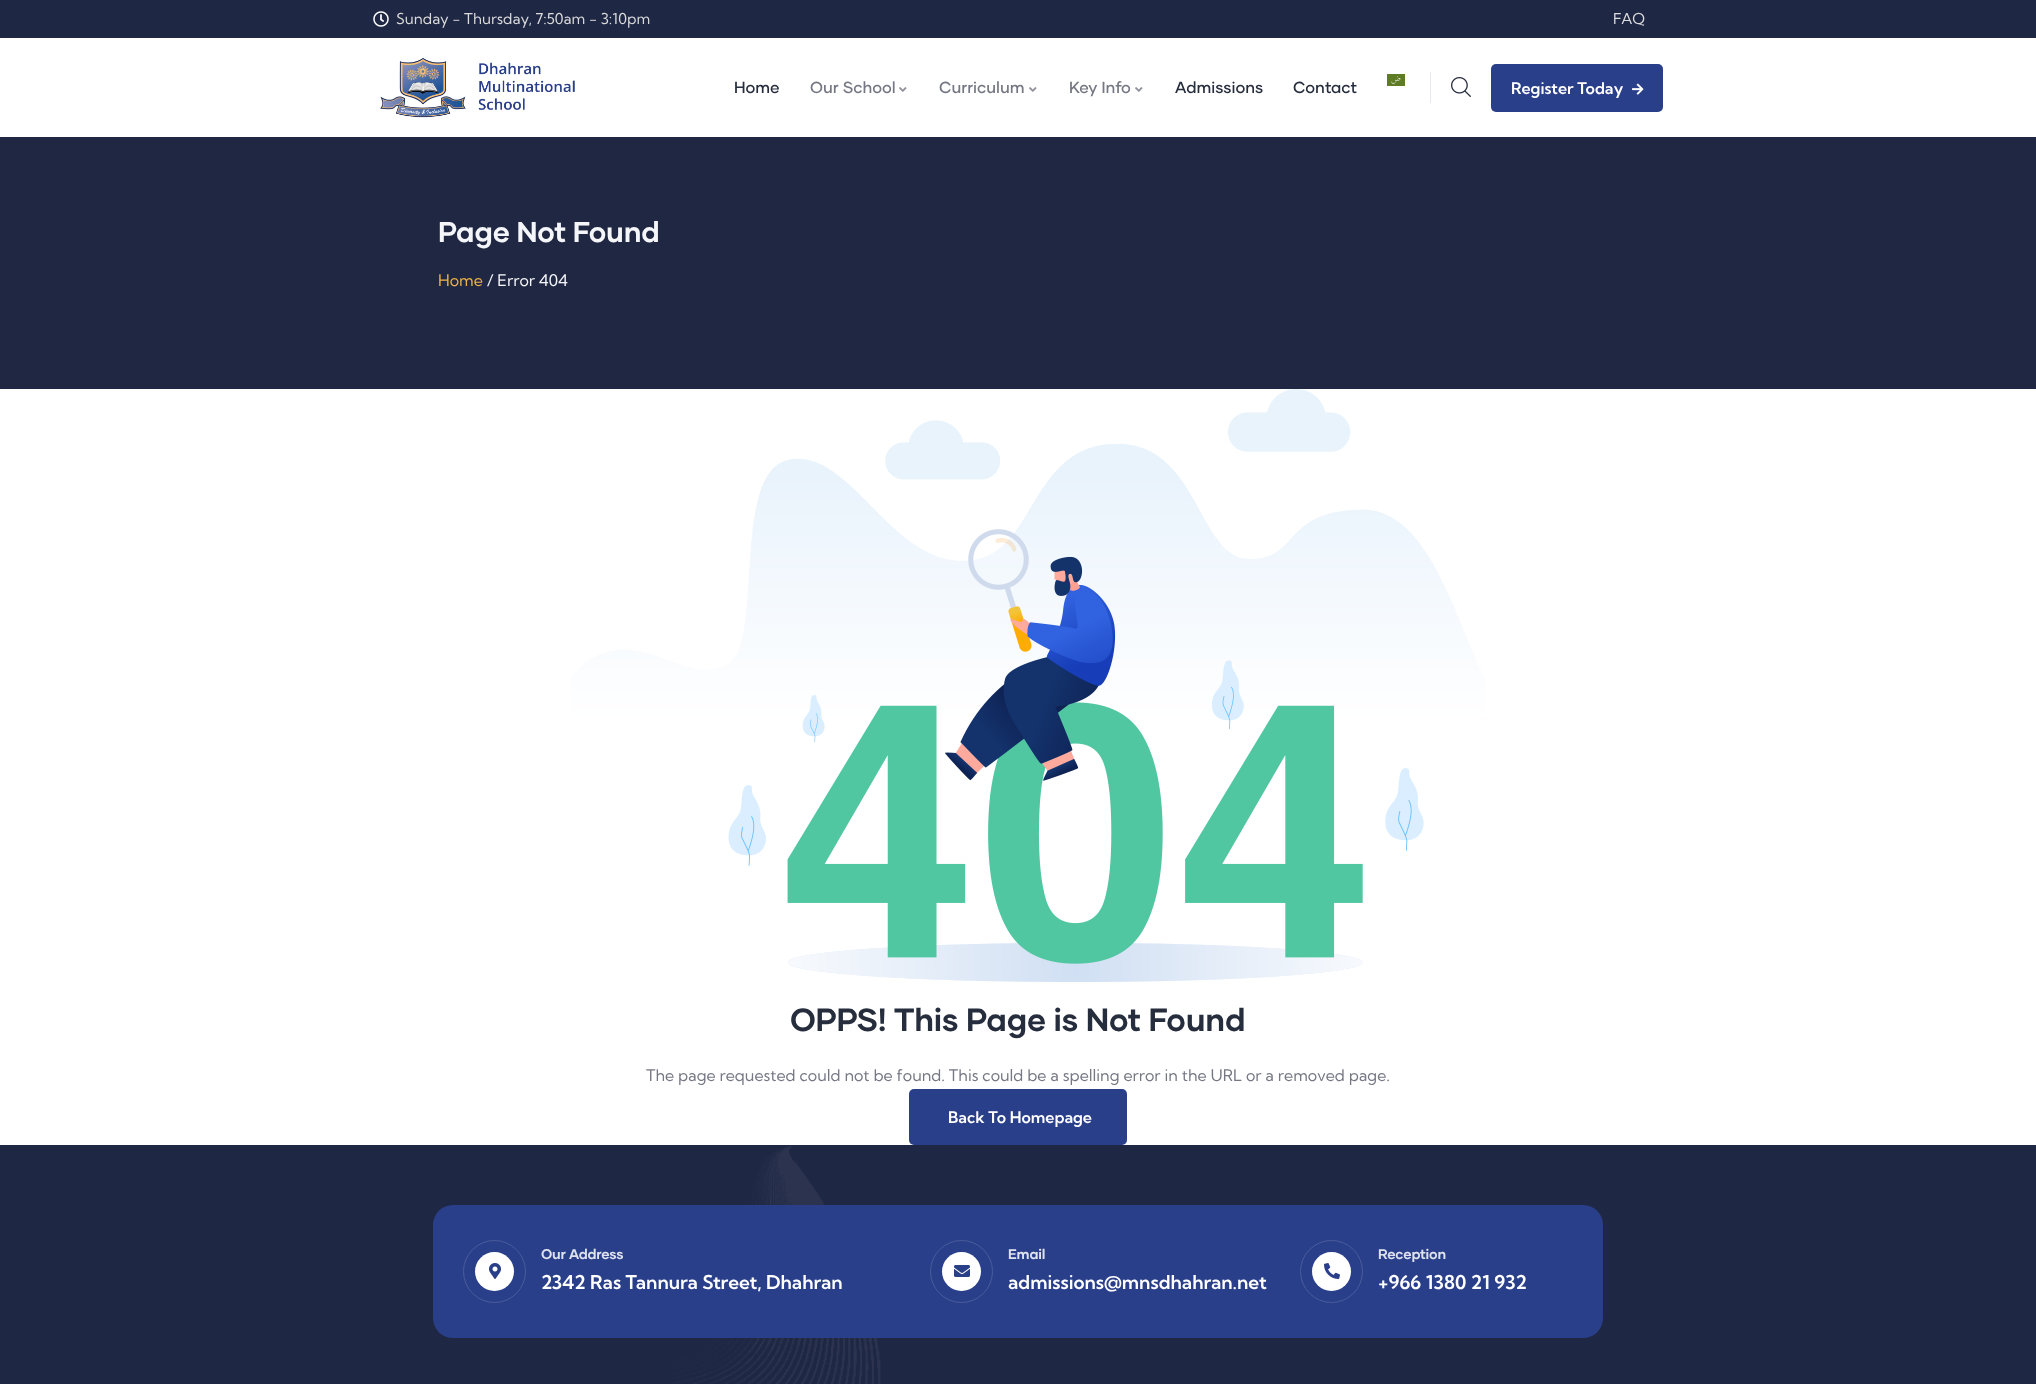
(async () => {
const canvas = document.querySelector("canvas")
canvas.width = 2036
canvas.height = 1384
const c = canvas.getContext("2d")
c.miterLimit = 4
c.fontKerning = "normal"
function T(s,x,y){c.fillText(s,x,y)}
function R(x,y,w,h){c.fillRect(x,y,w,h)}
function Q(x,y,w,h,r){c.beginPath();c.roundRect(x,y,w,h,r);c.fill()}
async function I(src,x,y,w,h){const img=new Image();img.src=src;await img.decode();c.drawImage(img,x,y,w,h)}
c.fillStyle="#fff"
R(0,0,2036,1384)
c.fillStyle="#1e2744"
R(0,0,2036,38)
await I("1.png",373,11,16,16)
c.font="15px Kumbh Sans"
c.fillStyle="#dbdbdb"
T("Sunday - Thursday, 7:50am - 3:10pm",396,24)
T("FAQ",1613,24)
await I("2.png",380,58,195,60)
c.font="500 16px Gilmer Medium"
c.fillStyle="#262d3d"
T("Home",734,93)
c.fillStyle="#757783"
T("Our School",810,93)
await I("3.png",899,87,8,5)
T("Curriculum",939,93)
await I("3.png",1029,87,8,5)
T("Key Info",1069,93)
await I("3.png",1135,87,8,5)
c.fillStyle="#262d3d"
T("Admissions",1175,93)
T("Contact",1293,93)
await I("4.png",1387,74,18,12)
c.fillStyle="#e7e9f1"
R(1430,72,1,31)
await I("5.png",1451,77,20,20)
c.fillStyle="#2a3f8a"
Q(1491,64,172,48,5)
c.font="600 16px Kumbh Sans"
c.fillStyle="#fff"
T("Register Today",1511,94)
await I("6.png",1632,83,12,12)
c.fillStyle="#202742"
R(0,137,2036,252)
c.letterSpacing="-0.2px"
c.font="bold 28.75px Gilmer"
c.fillStyle="#f5f6fa"
T("Page Not Found",438,242)
c.letterSpacing="0px"
c.font="16px Kumbh Sans"
c.fillStyle="#ebb347"
T("Home",438,286)
c.fillStyle="#f5f6fa"
T("/ Error 404",487,286)
await I("7.png",571,389,915,593)
c.letterSpacing="-0.2px"
c.font="bold 32px Gilmer"
c.fillStyle="#262d3d"
T("OPPS! This Page is Not Found",790,1031)
c.letterSpacing="0px"
c.font="16px Kumbh Sans"
c.fillStyle="#757783"
T("The page requested could not be found. This could be a spelling error in the URL or a removed page.",646,1081)
c.fillStyle="#2a3f8a"
Q(909,1089,218,56,5)
c.font="600 16px Kumbh Sans"
c.fillStyle="#fff"
T("Back To Homepage",948,1123)
c.fillStyle="#1e2744"
R(0,1145,2036,239)
await I("8.png",673,1146,208,238)
c.fillStyle="#2a3f8a"
Q(433,1205,1170,133,20)
c.beginPath()
c.arc(494.5,1271.5,31,0,7)
c.strokeStyle="#4a5c9c"
c.stroke()
c.fillStyle="#fff"
c.beginPath()
c.arc(494.5,1271.5,19.5,0,7)
c.fill()
await I("9.png",489,1263,12,16)
c.letterSpacing="-0.2px"
c.font="bold 14px Gilmer"
c.fillStyle="#dfe2ed"
T("Our Address",541,1259)
c.letterSpacing="0px"
c.font="600 19px Kumbh Sans"
c.fillStyle="#fff"
T("2342 Ras Tannura Street, Dhahran",541,1289)
c.beginPath()
c.arc(961.5,1271.5,31,0,7)
c.stroke()
c.beginPath()
c.arc(961.5,1271.5,19.5,0,7)
c.fill()
await I("10.png",954,1265,16,12)
c.letterSpacing="-0.2px"
c.font="bold 14px Gilmer"
c.fillStyle="#dfe2ed"
T("Email",1008,1259)
c.letterSpacing="0px"
c.font="600 19px Kumbh Sans"
c.fillStyle="#fff"
T("admissions@mnsdhahran.net",1008,1289)
c.beginPath()
c.arc(1331.5,1271.5,31,0,7)
c.stroke()
c.beginPath()
c.arc(1331.5,1271.5,19.5,0,7)
c.fill()
await I("11.png",1324,1263,16,16)
c.letterSpacing="-0.2px"
c.font="bold 14px Gilmer"
c.fillStyle="#dfe2ed"
T("Reception",1378,1259)
c.letterSpacing="0px"
c.font="600 19px Kumbh Sans"
c.fillStyle="#fff"
T("+966 1380 21 932",1378,1289)
})()
